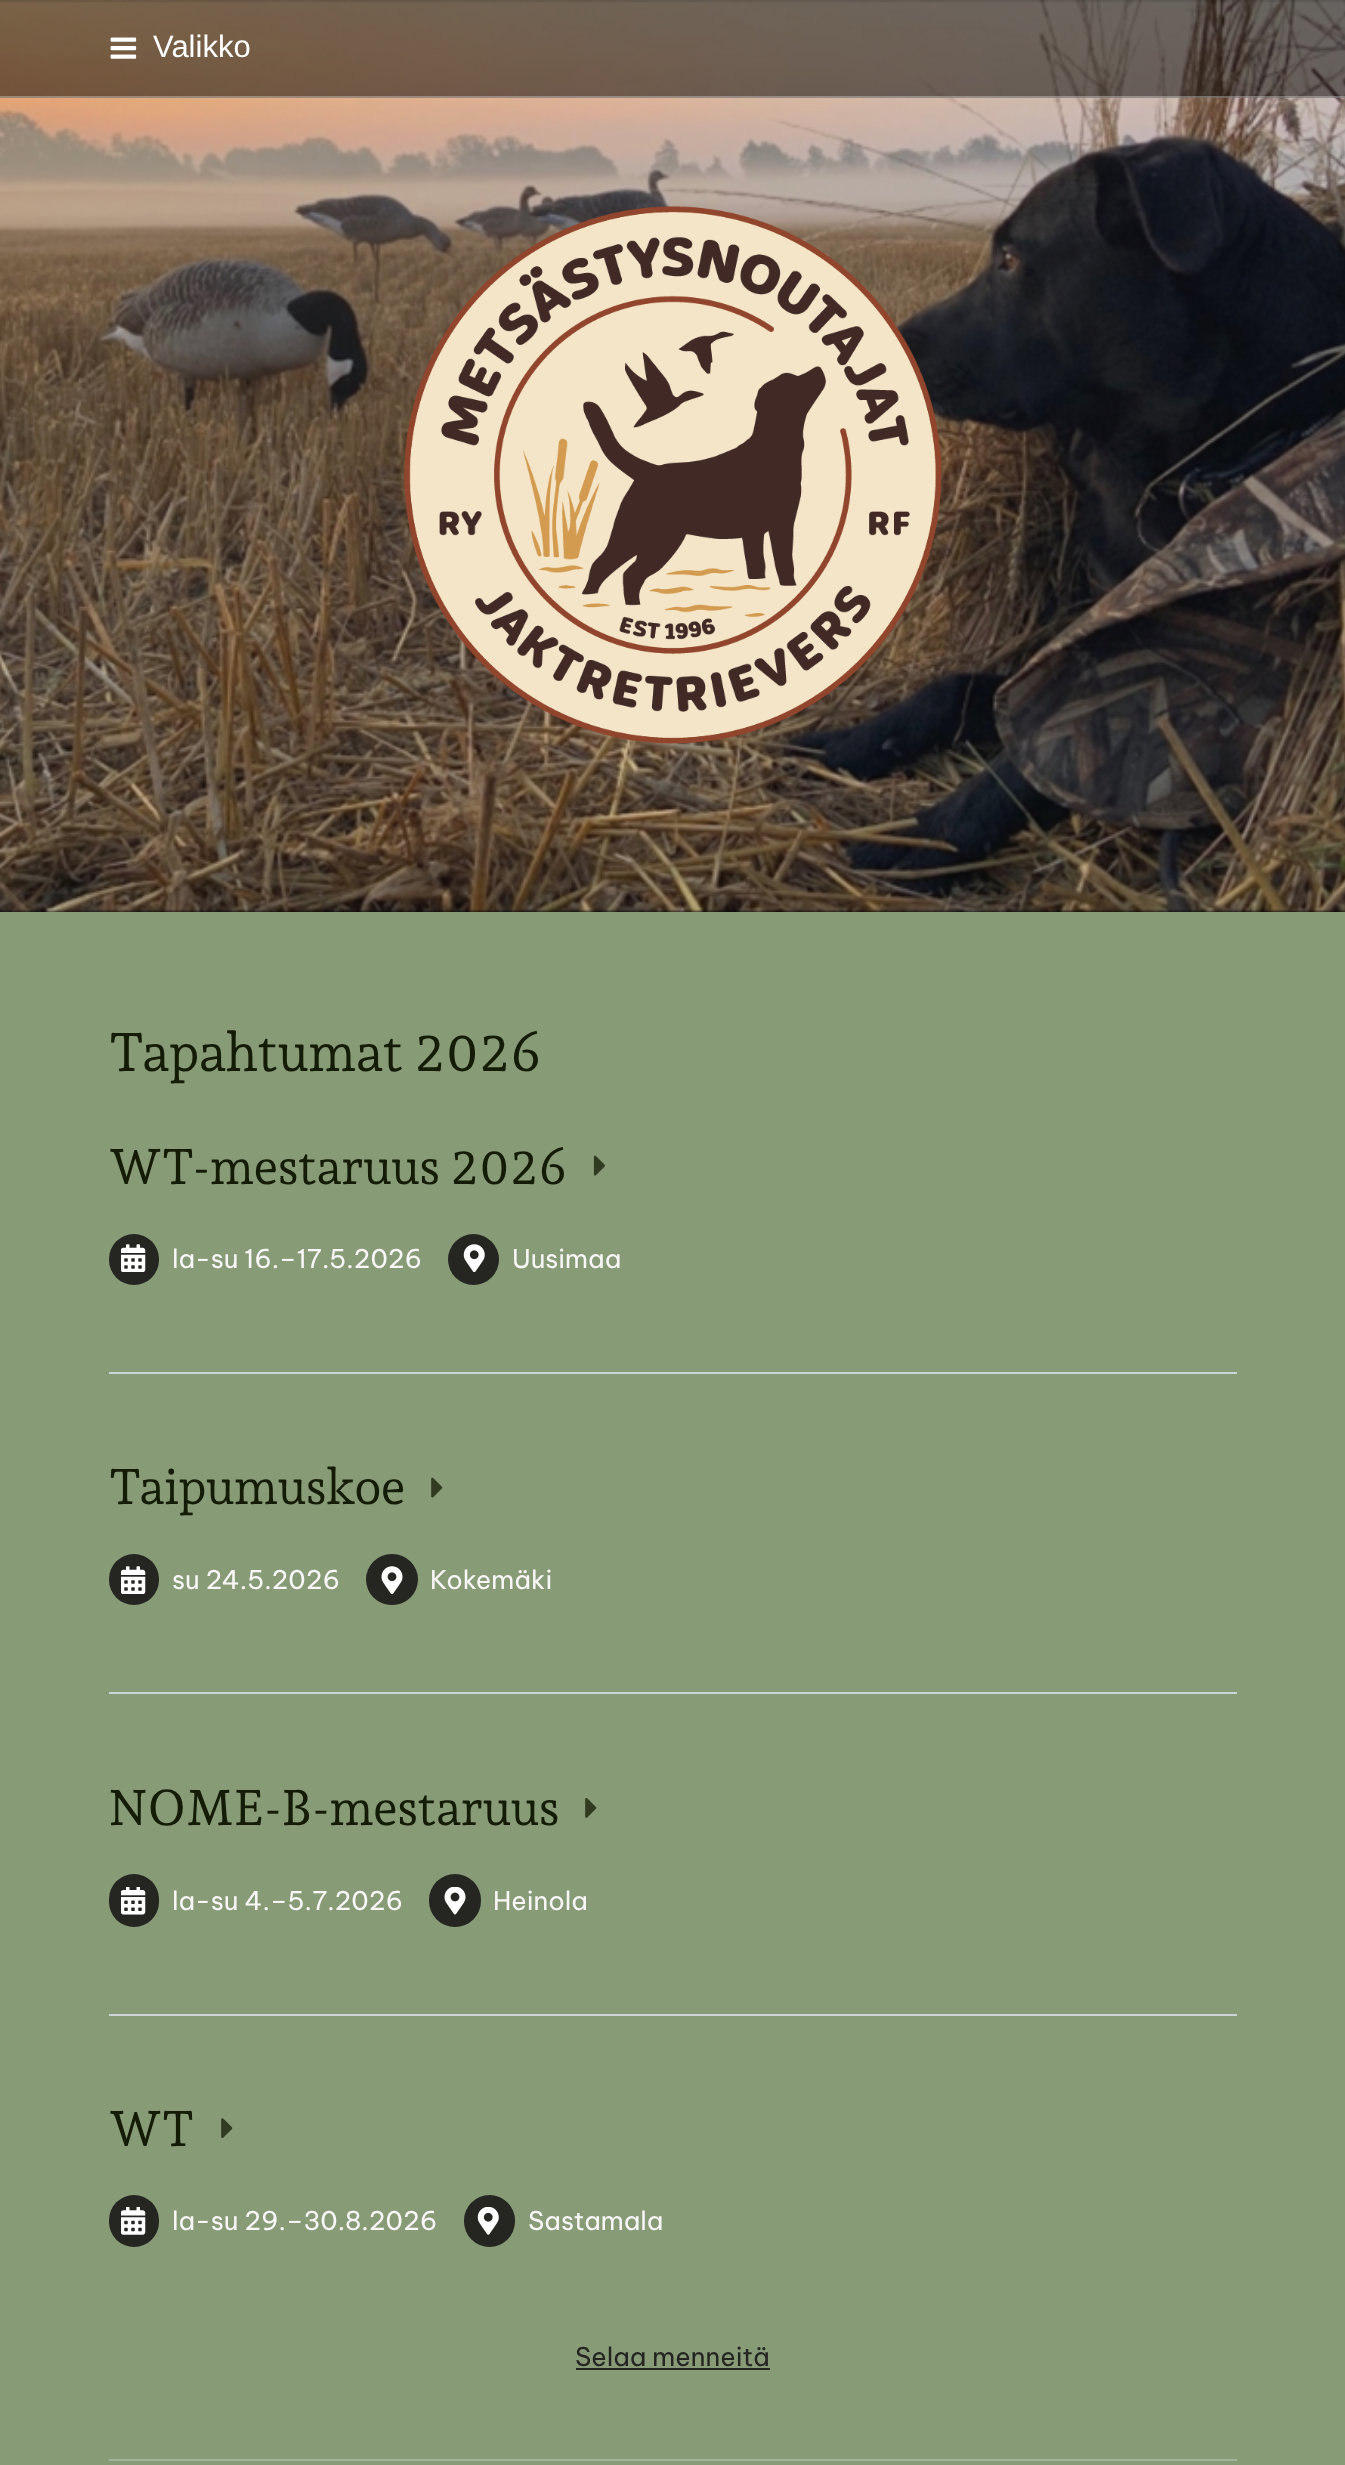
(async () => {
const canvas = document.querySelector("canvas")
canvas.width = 1345
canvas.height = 2465
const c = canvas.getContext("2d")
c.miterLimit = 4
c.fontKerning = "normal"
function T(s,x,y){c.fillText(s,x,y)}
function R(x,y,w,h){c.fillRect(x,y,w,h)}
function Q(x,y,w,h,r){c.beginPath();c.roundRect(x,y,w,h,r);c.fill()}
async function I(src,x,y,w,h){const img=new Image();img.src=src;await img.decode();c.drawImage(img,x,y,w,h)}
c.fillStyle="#879b77"
R(0,0,1345,2465)
c.fillStyle="#090909"
R(0,0,1345,912)
await I("1.png",0,0,1345,912)
c.fillStyle="#00000080"
R(0,0,1345,98)
c.fillStyle="#ffffff4d"
R(0,96,1345,2)
await I("2.png",110,37,27,22)
c.font="31px Liberation Sans"
c.fillStyle="#fff"
T("Valikko",153,57)
await I("3.png",404,206,538,538)
c.letterSpacing="-0.75px"
c.font="53.75px Andada Pro"
c.fillStyle="#141b06"
T("Tapahtumat 2026",108,1071)
c.fillStyle="#ccd5d5"
R(109,1372,1128,2)
c.font="49.5px Andada Pro"
c.fillStyle="#141b06"
T("WT-mestaruus 2026",108,1184)
await I("4.png",593,1155,12,21)
c.fillStyle="#252522"
Q(109,1234,50,51,25)
await I("5.png",121,1244,25,28)
c.letterSpacing="0px"
c.font="25.75px Be Vietnam Pro"
c.fillStyle="#f8f6f6"
T("la-su 16.–17.5.2026",172,1268)
c.fillStyle="#252522"
c.beginPath()
c.arc(473.5,1259.5,25.5,0,7)
c.fill()
await I("6.png",463,1244,22,28)
c.fillStyle="#f8f6f6"
T("Uusimaa",512,1268)
c.fillStyle="#ccd5d5"
R(109,1692,1128,2)
c.letterSpacing="-0.75px"
c.font="49.5px Andada Pro"
c.fillStyle="#141b06"
T("Taipumuskoe",108,1504)
await I("7.png",431,1477,12,21)
c.fillStyle="#252522"
Q(109,1554,50,51,25)
await I("5.png",121,1566,25,28)
c.letterSpacing="0px"
c.font="25.75px Be Vietnam Pro"
c.fillStyle="#f8f6f6"
T("su 24.5.2026",172,1589)
c.fillStyle="#252522"
Q(366,1554,52,51,25.5)
await I("8.png",381,1566,22,28)
c.fillStyle="#f8f6f6"
T("Kokemäki",430,1589)
c.fillStyle="#ccd5d5"
R(109,2014,1128,2)
c.letterSpacing="-0.75px"
c.font="49.5px Andada Pro"
c.fillStyle="#141b06"
T("NOME-B-mestaruus",108,1825)
await I("9.png",585,1798,12,20)
c.fillStyle="#252522"
Q(109,1874,50,53,25)
await I("10.png",121,1887,25,28)
c.letterSpacing="0px"
c.font="25.75px Be Vietnam Pro"
c.fillStyle="#f8f6f6"
T("la-su 4.–5.7.2026",172,1910)
c.fillStyle="#252522"
Q(429,1874,52,53,26)
await I("11.png",444,1887,22,28)
c.fillStyle="#f8f6f6"
T("Heinola",493,1910)
c.letterSpacing="-0.75px"
c.font="49.5px Andada Pro"
c.fillStyle="#141b06"
T("WT",108,2146)
await I("12.png",221,2118,12,20)
c.fillStyle="#252522"
Q(109,2195,50,52,25)
await I("13.png",121,2207,25,28)
c.letterSpacing="0px"
c.font="25.75px Be Vietnam Pro"
c.fillStyle="#f8f6f6"
T("la-su 29.–30.8.2026",172,2230)
c.fillStyle="#252522"
Q(464,2195,51,52,25.5)
await I("14.png",477,2207,22,28)
c.fillStyle="#f8f6f6"
T("Sastamala",528,2230)
c.fillStyle="#252522"
T("Selaa menneitä",575,2366)
R(576,2368,194,2)
c.fillStyle="#a5b499"
R(109,2459,1128,2)
})()
